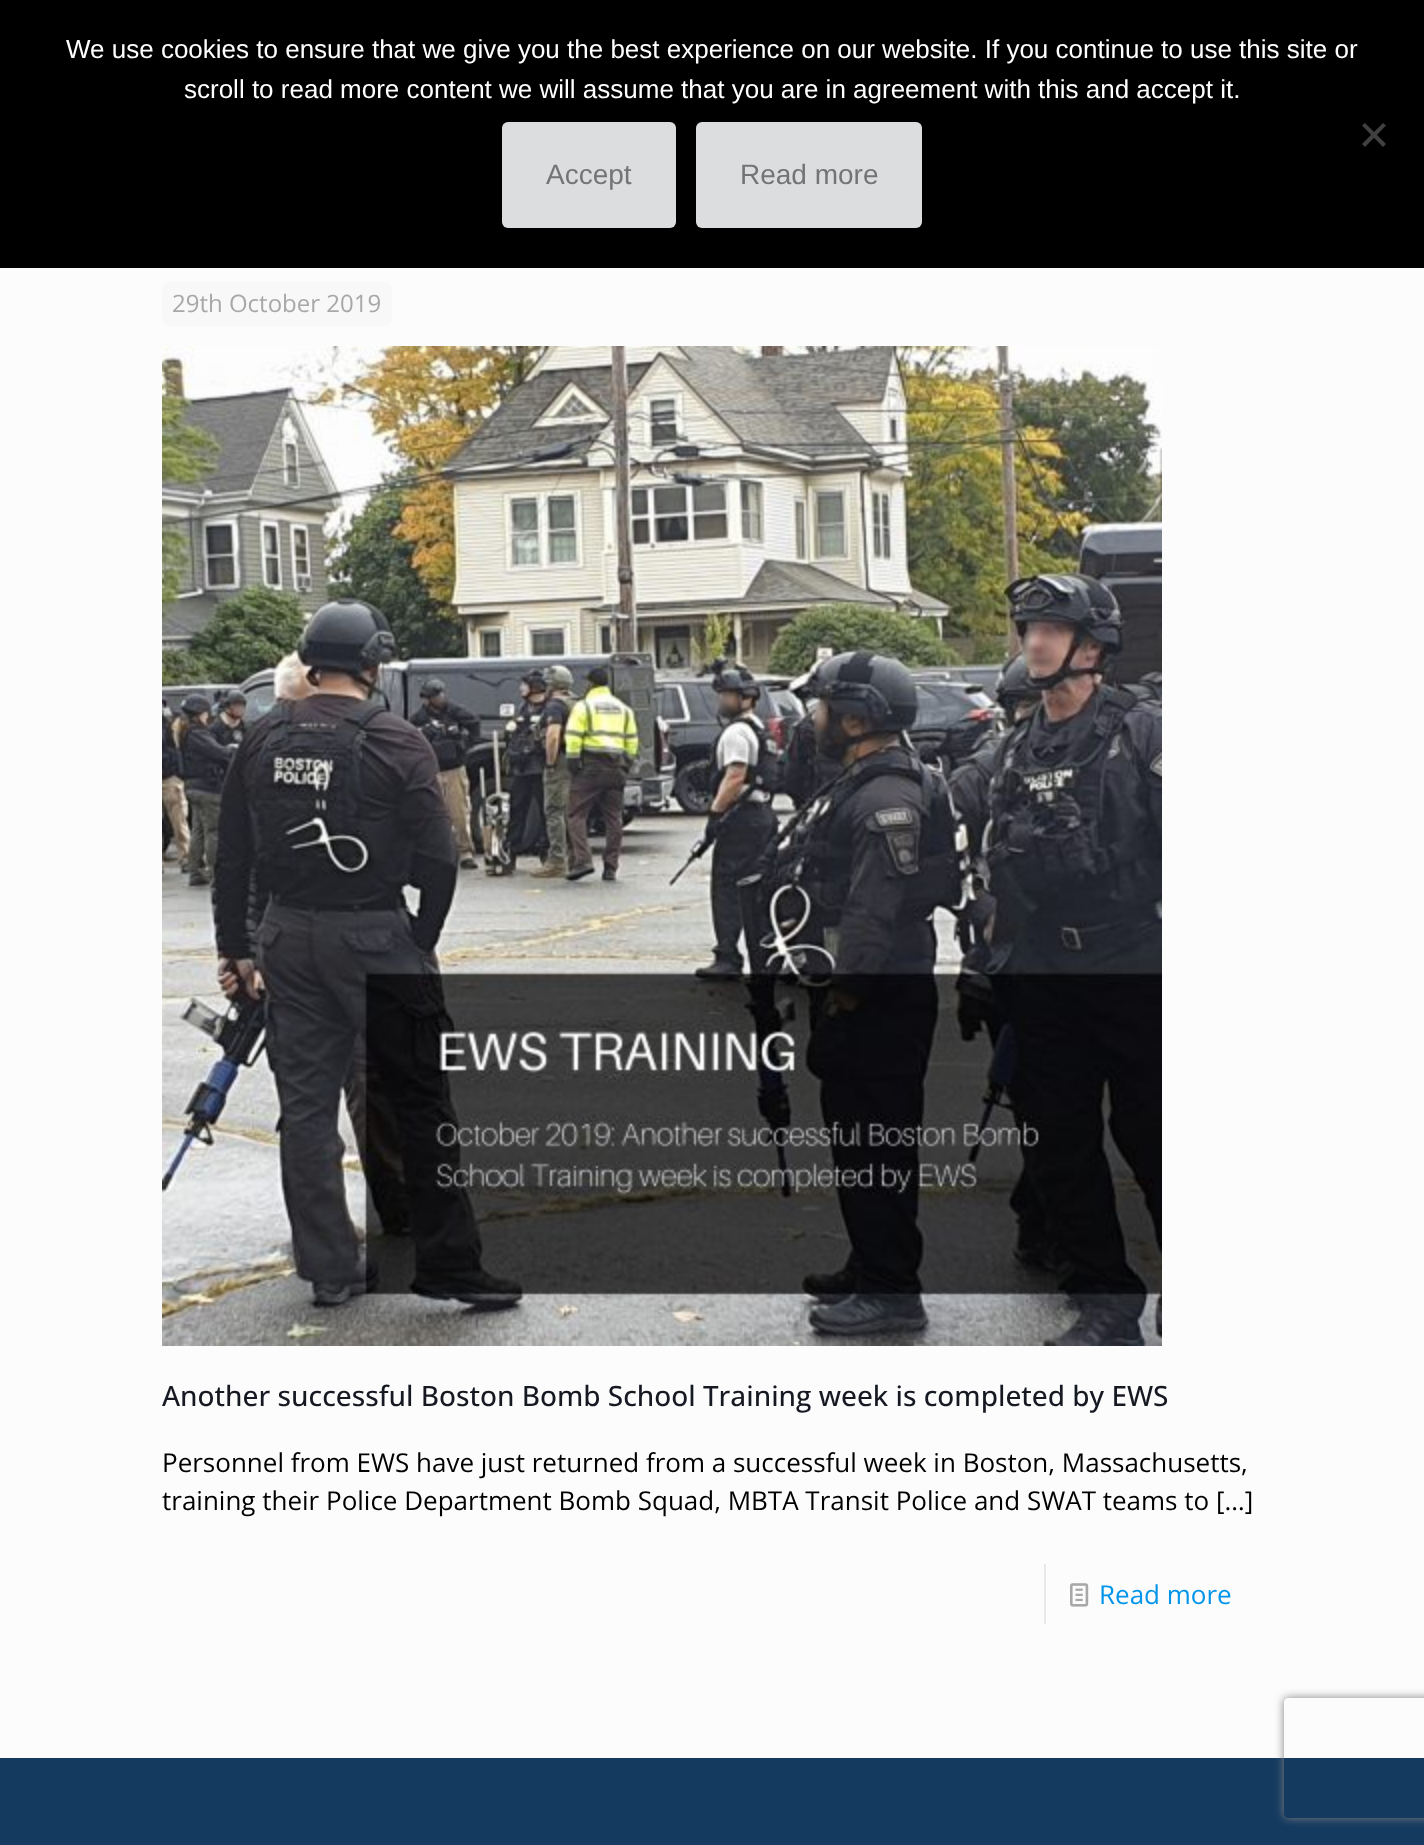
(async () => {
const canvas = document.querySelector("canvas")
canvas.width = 1424
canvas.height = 1845
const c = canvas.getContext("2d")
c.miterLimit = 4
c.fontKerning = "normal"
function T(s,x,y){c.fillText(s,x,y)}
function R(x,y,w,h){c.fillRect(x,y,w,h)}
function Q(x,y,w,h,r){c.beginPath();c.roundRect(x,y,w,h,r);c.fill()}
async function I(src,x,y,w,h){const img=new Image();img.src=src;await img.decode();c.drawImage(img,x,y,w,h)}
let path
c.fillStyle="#fcfcfc"
R(0,0,1424,1845)
c.fillStyle="#000"
R(0,0,1424,268)
c.font="26px Liberation Sans"
c.fillStyle="#fff"
T("We use cookies to ensure that we give you the best experience on our website. If you continue to use this site or",66,58)
T("scroll to read more content we will assume that you are in agreement with this and accept it.",184,98)
c.fillStyle="#404040"
path = new Path2D("M1383 123l3 2.5l-21 21.5l-3-3z")
c.fill(path)
path = new Path2D("M1362 125.5l3-2.5l21 21l-3 3z")
c.fill(path)
c.fillStyle="#dbdddf"
Q(502,122,174,106,6)
c.font="28px Liberation Sans"
c.fillStyle="#747474"
T("Accept",546,184)
c.fillStyle="#dbdddf"
Q(696,122,226,106,6)
c.fillStyle="#747474"
T("Read more",740,184)
c.fillStyle="#f8f8f8"
Q(162,282,230,44,8)
c.font="24px Open Sans"
c.fillStyle="#a8a8a8"
T("29th October 2019",172,312)
await I("1.png",162,346,1000,1000)
c.font="500 28px Open Sans"
c.fillStyle="#161922"
T("Another successful Boston Bomb School Training week is completed by EWS",162,1406)
c.font="26px Open Sans"
c.fillStyle="#000"
T("Personnel from EWS have just returned from a successful week in Boston, Massachusetts,",162,1472)
T("training their Police Department Bomb Squad, MBTA Transit Police and SWAT teams to […]",162,1510)
c.fillStyle="#e8e8e8"
R(1044,1564,2,60)
await I("2.png",1070,1583,19,24)
c.fillStyle="#0095eb"
T("Read more",1099,1604)
c.fillStyle="#143a60"
R(0,1758,1424,87)
c.save()
path = new Path2D("M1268 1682h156v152h-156zm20 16h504c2 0 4 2 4 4v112c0 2-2 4-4 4h-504c-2 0-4-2-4-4v-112c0-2 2-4 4-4z")
c.clip(path,"evenodd")
c.fillStyle="#808080"
c.filter="blur(5px)"
c.beginPath()
c.roundRect(1284,1698,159,120,4)
c.fill()
c.filter="none"
c.restore()
})()
